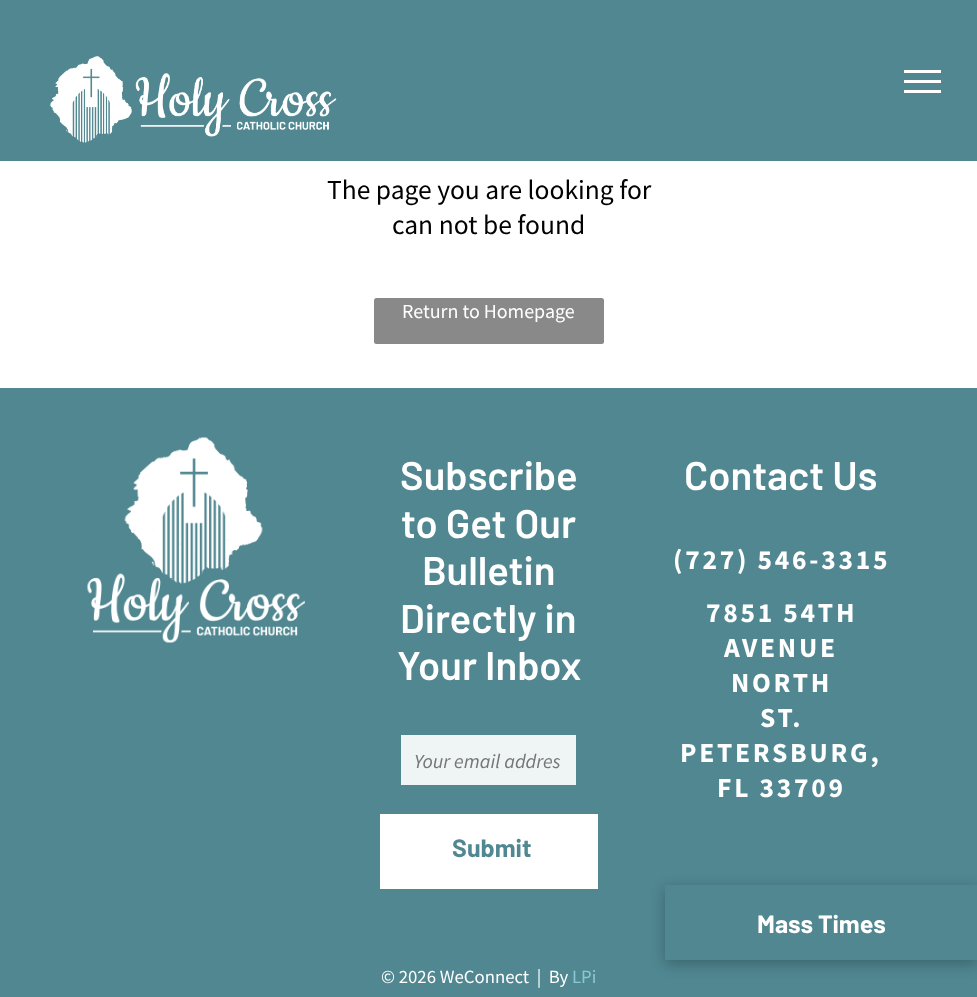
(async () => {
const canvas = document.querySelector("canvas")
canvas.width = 977
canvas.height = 997
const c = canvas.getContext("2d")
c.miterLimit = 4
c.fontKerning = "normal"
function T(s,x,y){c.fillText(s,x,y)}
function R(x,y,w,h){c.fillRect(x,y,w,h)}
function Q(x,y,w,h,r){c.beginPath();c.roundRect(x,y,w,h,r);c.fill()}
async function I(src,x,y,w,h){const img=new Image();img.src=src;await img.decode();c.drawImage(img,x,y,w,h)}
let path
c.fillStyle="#fff"
R(0,0,977,997)
c.fillStyle="#508791"
R(0,0,977,161)
await I("1.png",50,56,287,87)
c.fillStyle="#fff"
R(904,70,37,3)
R(904,80,37,3)
R(904,90,37,3)
c.font="27.5px Source Sans Pro"
c.fillStyle="#000"
T("The page you are looking for",327,199)
T("can not be found",392,234)
c.fillStyle="#898989"
Q(374,298,230,46,2.5)
c.font="20px Source Sans Pro"
c.fillStyle="#fff"
T("Return to Homepage",402,318)
c.fillStyle="#508791"
R(0,388,977,609)
await I("2.png",87,437,218,206)
c.font="600 40px Barlow"
c.fillStyle="#fff"
T("Subscribe",400,490)
T("to Get Our",401,538)
T("Bulletin",422,585)
T("Directly in",400,633)
T("Your Inbox",397,680)
c.fillStyle="#eff4f5"
R(401,735,175,50)
c.font="italic 20px Source Sans Pro"
c.fillStyle="#757575"
T("Your email addres",414,768)
c.fillStyle="#fff"
R(380,814,218,75)
c.font="bold 25px Barlow"
c.fillStyle="#508791"
T("Submit",452,857)
c.font="18.75px Source Sans Pro"
c.fillStyle="#fff"
T("© 2026 WeConnect  |  By",381,983)
c.fillStyle="#8bc8d5"
T("LPi",572,983)
c.font="600 40px Barlow"
c.fillStyle="#fff"
T("Contact Us",684,490)
c.letterSpacing="2.75px"
c.font="bold 27.5px Source Sans Pro"
T("(727) 546-3315",673,569)
T("7851 54TH",706,622)
T("AVENUE",724,657)
T("NORTH",731,692)
T("ST.",760,727)
T("PETERSBURG,",680,762)
T("FL 33709",717,797)
c.save()
path = new Path2D("M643 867h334v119h-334zm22 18h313v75h-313z")
c.clip(path,"evenodd")
c.fillStyle="#00000040"
c.filter="blur(7px)"
c.beginPath()
c.rect(665,889,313,75)
c.fill()
c.filter="none"
c.restore()
c.letterSpacing="0px"
c.font="bold 25px Barlow"
T("Mass Times",757,933)
})()
